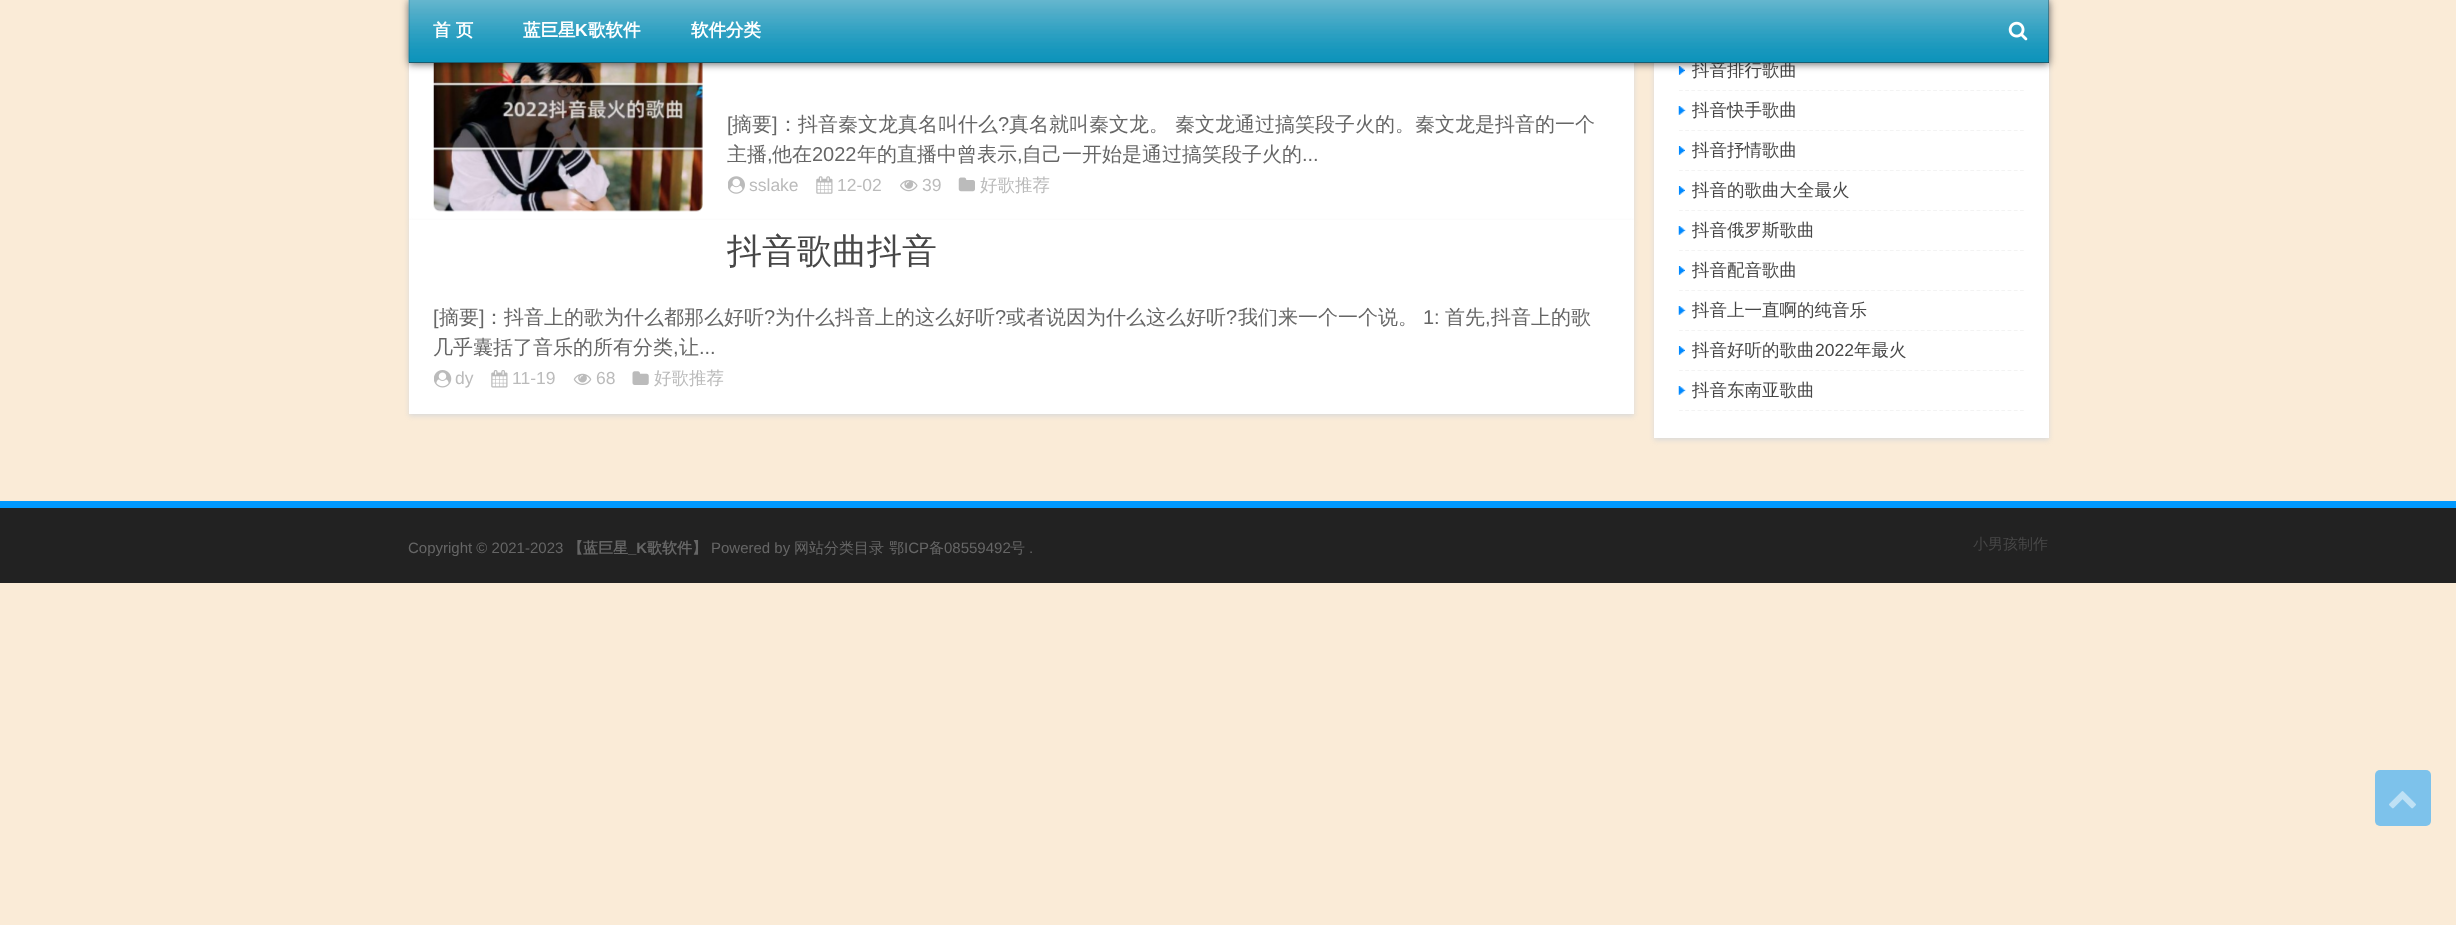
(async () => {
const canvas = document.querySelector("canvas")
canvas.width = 2456
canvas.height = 925
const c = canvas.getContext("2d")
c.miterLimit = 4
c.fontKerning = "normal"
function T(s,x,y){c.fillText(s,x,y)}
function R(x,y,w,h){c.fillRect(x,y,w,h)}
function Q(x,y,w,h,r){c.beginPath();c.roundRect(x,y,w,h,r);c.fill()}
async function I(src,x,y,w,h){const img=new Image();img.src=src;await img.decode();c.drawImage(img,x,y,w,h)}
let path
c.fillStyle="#faebd7"
R(0,0,2456,925)
c.fillStyle="#d9d9d9"
c.filter="blur(2.5px)"
c.beginPath()
c.rect(409,29,1225,194)
c.fill()
c.filter="none"
c.fillStyle="#fff"
R(409,63,1225,157)
await I("3.png",433,63,270,149)
c.fillStyle="#d9d9d9"
c.filter="blur(2.5px)"
c.beginPath()
c.rect(1654,-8,395,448)
c.fill()
c.filter="none"
c.fillStyle="#fff"
R(1654,63,395,375)
await I("12.png",1678,66,7,9)
c.fillStyle="#0000001a"
c.filter="blur(2.5px)"
c.beginPath()
c.rect(409,3,1640,62)
c.fill()
c.filter="none"
c.fillStyle="#d9d9d9"
c.filter="blur(2.5px)"
c.beginPath()
c.rect(409,-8,1225,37)
c.fill()
c.filter="none"
c.font="500 17.5px WenQuanYi Zen Hei"
c.fillStyle="#474747"
T("抖音排行歌曲",1692,76)
c.fillStyle="#363636"
R(409,0,1640,63)
c.fillStyle="#00000080"
c.filter="blur(4.5px)"
c.beginPath()
c.rect(409,1,1640,63)
c.fill()
c.filter="none"
await I("1.png",408,0,1641,63)
c.font="bold 17.5px WenQuanYi Zen Hei"
c.fillStyle="#fff"
T("首 页",433,36)
T("蓝巨星",523,36)
c.font="bold 17.5px Liberation Sans"
T("K",575,36)
c.font="bold 17.5px WenQuanYi Zen Hei"
T("歌软件",588,36)
T("软件分类",691,36)
await I("2.png",2008,21,20,20)
c.font="20px Liberation Sans"
c.fillStyle="#666"
T("[",727,131)
c.font="500 20px WenQuanYi Zen Hei"
T("摘要",732,131)
c.font="20px Liberation Sans"
T("]",772,131)
c.font="500 20px WenQuanYi Zen Hei"
T("：抖音秦文龙真名叫什么",778,131)
c.font="20px Liberation Sans"
T("?",998,131)
c.font="500 20px WenQuanYi Zen Hei"
T("真名就叫秦文龙。 秦文龙通过搞笑段子火的。秦文龙是抖音的一个",1009,131)
T("主播",727,161)
c.font="20px Liberation Sans"
T(",",767,161)
c.font="500 20px WenQuanYi Zen Hei"
T("他在",772,161)
c.font="20px Liberation Sans"
T("2022",812,161)
c.font="500 20px WenQuanYi Zen Hei"
T("年的直播中曾表示",857,161)
c.font="20px Liberation Sans"
T(",",1017,161)
c.font="500 20px WenQuanYi Zen Hei"
T("自己一开始是通过搞笑段子火的",1022,161)
c.font="20px Liberation Sans"
T("...",1302,161)
await I("4.png",728,176,17,18)
c.font="17.5px Liberation Sans"
c.fillStyle="#bbb"
T("sslake",749,191)
await I("5.png",816,176,17,18)
T("12-02",837,191)
await I("6.png",900,180,18,12)
T("39",922,191)
await I("7.png",958,177,17,15)
c.font="500 17.5px WenQuanYi Zen Hei"
T("好歌推荐",980,191)
c.fillStyle="#d9d9d9"
c.filter="blur(2.5px)"
c.beginPath()
c.rect(409,223,1225,193)
c.fill()
c.filter="none"
c.fillStyle="#fff"
R(409,220,1225,194)
c.font="500 35px WenQuanYi Zen Hei"
c.fillStyle="#474747"
T("抖音歌曲抖音",727,263)
c.font="20px Liberation Sans"
c.fillStyle="#666"
T("[",433,324)
c.font="500 20px WenQuanYi Zen Hei"
T("摘要",439,324)
c.font="20px Liberation Sans"
T("]",479,324)
c.font="500 20px WenQuanYi Zen Hei"
T("：抖音上的歌为什么都那么好听",484,324)
c.font="20px Liberation Sans"
T("?",764,324)
c.font="500 20px WenQuanYi Zen Hei"
T("为什么抖音上的这么好听",775,324)
c.font="20px Liberation Sans"
T("?",995,324)
c.font="500 20px WenQuanYi Zen Hei"
T("或者说因为什么这么好听",1006,324)
c.font="20px Liberation Sans"
T("?",1226,324)
c.font="500 20px WenQuanYi Zen Hei"
T("我们来一个一个说。",1238,324)
c.font="20px Liberation Sans"
T("1:",1423,324)
c.font="500 20px WenQuanYi Zen Hei"
T("首先",1445,324)
c.font="20px Liberation Sans"
T(",",1485,324)
c.font="500 20px WenQuanYi Zen Hei"
T("抖音上的歌",1491,324)
T("几乎囊括了音乐的所有分类",433,354)
c.font="20px Liberation Sans"
T(",",673,354)
c.font="500 20px WenQuanYi Zen Hei"
T("让",679,354)
c.font="20px Liberation Sans"
T("...",699,354)
await I("8.png",434,370,18,18)
c.font="17.5px Liberation Sans"
c.fillStyle="#bbb"
T("dy",455,384)
await I("9.png",491,370,17,18)
T("11-19",512,384)
await I("10.png",573,373,19,12)
T("68",596,384)
await I("11.png",632,371,17,14)
c.font="500 17.5px WenQuanYi Zen Hei"
T("好歌推荐",654,384)
path = new Path2D("M1679 90.5h345")
c.strokeStyle="#f3f3f3"
c.lineWidth=1.2
c.setLineDash([3.75,2.45])
c.stroke(path)
await I("13.png",1678,106,8,9)
path = new Path2D("M1679 130.5h345")
c.stroke(path)
c.fillStyle="#474747"
T("抖音快手歌曲",1692,116)
await I("12.png",1678,146,7,9)
path = new Path2D("M1679 170.5h345")
c.stroke(path)
T("抖音抒情歌曲",1692,156)
await I("12.png",1678,186,7,9)
path = new Path2D("M1679 210.5h345")
c.stroke(path)
T("抖音的歌曲大全最火",1692,196)
await I("13.png",1678,226,8,9)
path = new Path2D("M1679 250.5h345")
c.stroke(path)
T("抖音俄罗斯歌曲",1692,236)
await I("12.png",1678,266,7,9)
path = new Path2D("M1679 290.5h345")
c.stroke(path)
T("抖音配音歌曲",1692,276)
await I("13.png",1678,306,8,9)
path = new Path2D("M1679 330.5h345")
c.stroke(path)
T("抖音上一直啊的纯音乐",1692,316)
await I("12.png",1678,346,7,9)
path = new Path2D("M1679 370.5h345")
c.stroke(path)
T("抖音好听的歌曲",1692,356)
c.font="17.5px Liberation Sans"
T("2022",1815,356)
c.font="500 17.5px WenQuanYi Zen Hei"
T("年最火",1854,356)
await I("13.png",1678,386,8,9)
path = new Path2D("M1679 410.5h345")
c.stroke(path)
T("抖音东南亚歌曲",1692,396)
c.fillStyle="#222"
R(0,508,2456,75)
c.fillStyle="#09f"
R(0,501,2456,7)
c.font="15px Liberation Sans"
c.fillStyle="#666"
T("Copyright © 2021-2023",408,553)
c.font="bold 15px WenQuanYi Zen Hei"
T("【蓝巨星",568,553)
c.font="bold 15px Liberation Sans"
T("_K",628,553)
c.font="bold 15px WenQuanYi Zen Hei"
T("歌软件】",647,553)
c.font="15px Liberation Sans"
T("Powered by",711,553)
c.font="500 15px WenQuanYi Zen Hei"
T("网站分类目录",794,553)
T("鄂",889,553)
c.font="15px Liberation Sans"
T("ICP",904,553)
c.font="500 15px WenQuanYi Zen Hei"
T("备",929,553)
c.font="15px Liberation Sans"
T("08559492",944,553)
c.font="500 15px WenQuanYi Zen Hei"
T("号",1010,553)
c.font="15px Liberation Sans"
T(".",1029,553)
c.font="500 15px WenQuanYi Zen Hei"
c.fillStyle="#474747"
T("小男孩制作",1973,549)
c.fillStyle="#7dc2eb"
Q(2375,770,56,56,5)
await I("14.png",2389,791,27,18)
})()
